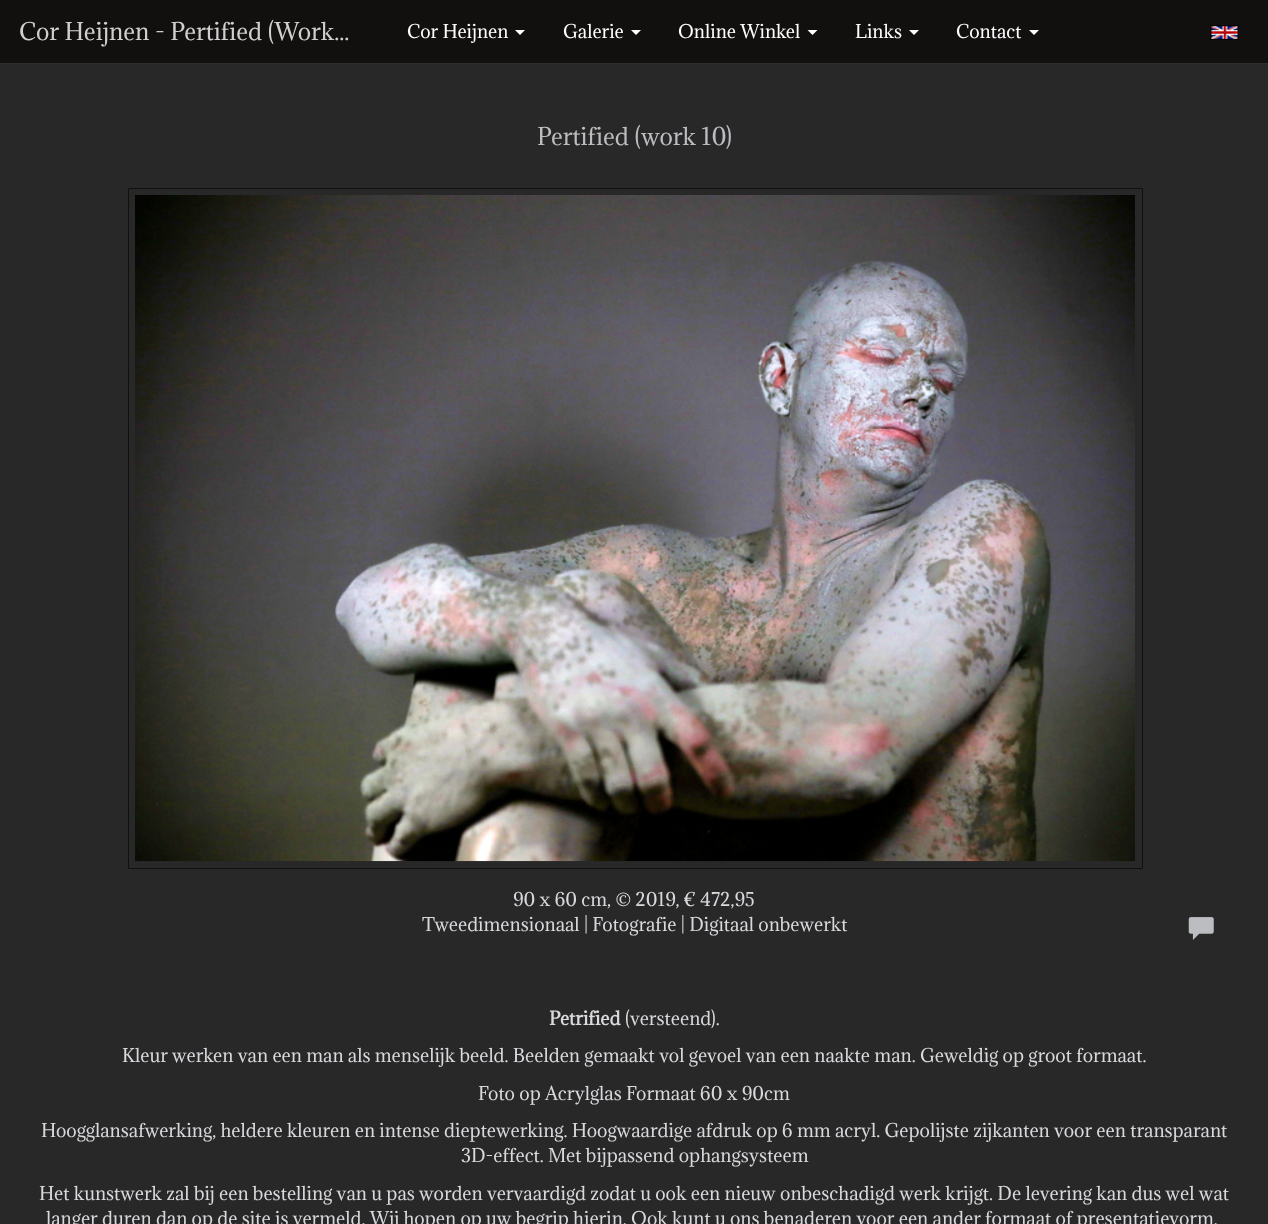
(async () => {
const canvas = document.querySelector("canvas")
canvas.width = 1268
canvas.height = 1224
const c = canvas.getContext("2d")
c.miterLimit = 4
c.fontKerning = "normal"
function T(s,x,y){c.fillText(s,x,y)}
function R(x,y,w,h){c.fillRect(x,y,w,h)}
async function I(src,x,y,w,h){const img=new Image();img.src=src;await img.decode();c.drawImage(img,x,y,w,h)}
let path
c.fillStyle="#282828"
R(0,0,1268,1224)
c.fillStyle="#120f0f"
R(0,0,1268,63)
c.fillStyle="#2d2d2d"
R(0,63,1268,1)
c.font="22.5px Adamina"
c.fillStyle="#d0cfcf"
T("Cor Heijnen - Pertified (Work...",19,40)
c.font="17.5px Adamina"
c.fillStyle="#fff"
T("Cor Heijnen",407,38)
path = new Path2D("M515 30h10l-5 5z")
c.fill(path)
T("Galerie",563,38)
path = new Path2D("M631 30h10l-5 5z")
c.fill(path)
T("Online Winkel",678,38)
path = new Path2D("M807.5 30h10l-5 5z")
c.fill(path)
T("Links",855,38)
path = new Path2D("M909 30h10l-5 5z")
c.fill(path)
T("Contact",956,38)
path = new Path2D("M1029 30h10l-5 5z")
c.fill(path)
await I("1.png",1210,25,29,15)
c.font="22.5px Adamina"
c.fillStyle="#bcbdc0"
T("Pertified (work 10)",537,145)
c.beginPath()
c.roundRect(128.5,188.5,1014,680,.5)
c.strokeStyle="#120f0f"
c.stroke()
await I("2.png",135,195,1000,667)
c.font="17.5px Adamina"
c.fillStyle="#d9d9dd"
T("90 x 60 cm, © 2019, € 472,95",513,906)
T("Tweedimensionaal | Fotografie | Digitaal onbewerkt",422,931)
await I("3.png",1188,917,26,23)
c.font="bold 17.5px Adamina"
T("Petrified",549,1025)
c.font="17.5px Adamina"
T("(versteend).",625,1025)
T("Kleur werken van een man als menselijk beeld. Beelden gemaakt vol gevoel van een naakte man. Geweldig op groot formaat.",122,1062)
T("Foto op Acrylglas Formaat 60 x 90cm",478,1100)
T("Hoogglansafwerking, heldere kleuren en intense dieptewerking. Hoogwaardige afdruk op 6 mm acryl. Gepolijste zijkanten voor een transparant",41,1137)
T("3D-effect. Met bijpassend ophangsysteem",461,1162)
T("Het kunstwerk zal bij een bestelling van u pas worden vervaardigd zodat u ook een nieuw onbeschadigd werk krijgt. De levering kan dus wel wat",39,1200)
T("langer duren dan op de site is vermeld. Wij hopen op uw begrip hierin. Ook kunt u ons benaderen voor een ander formaat of presentatievorm.",46,1225)
})()
